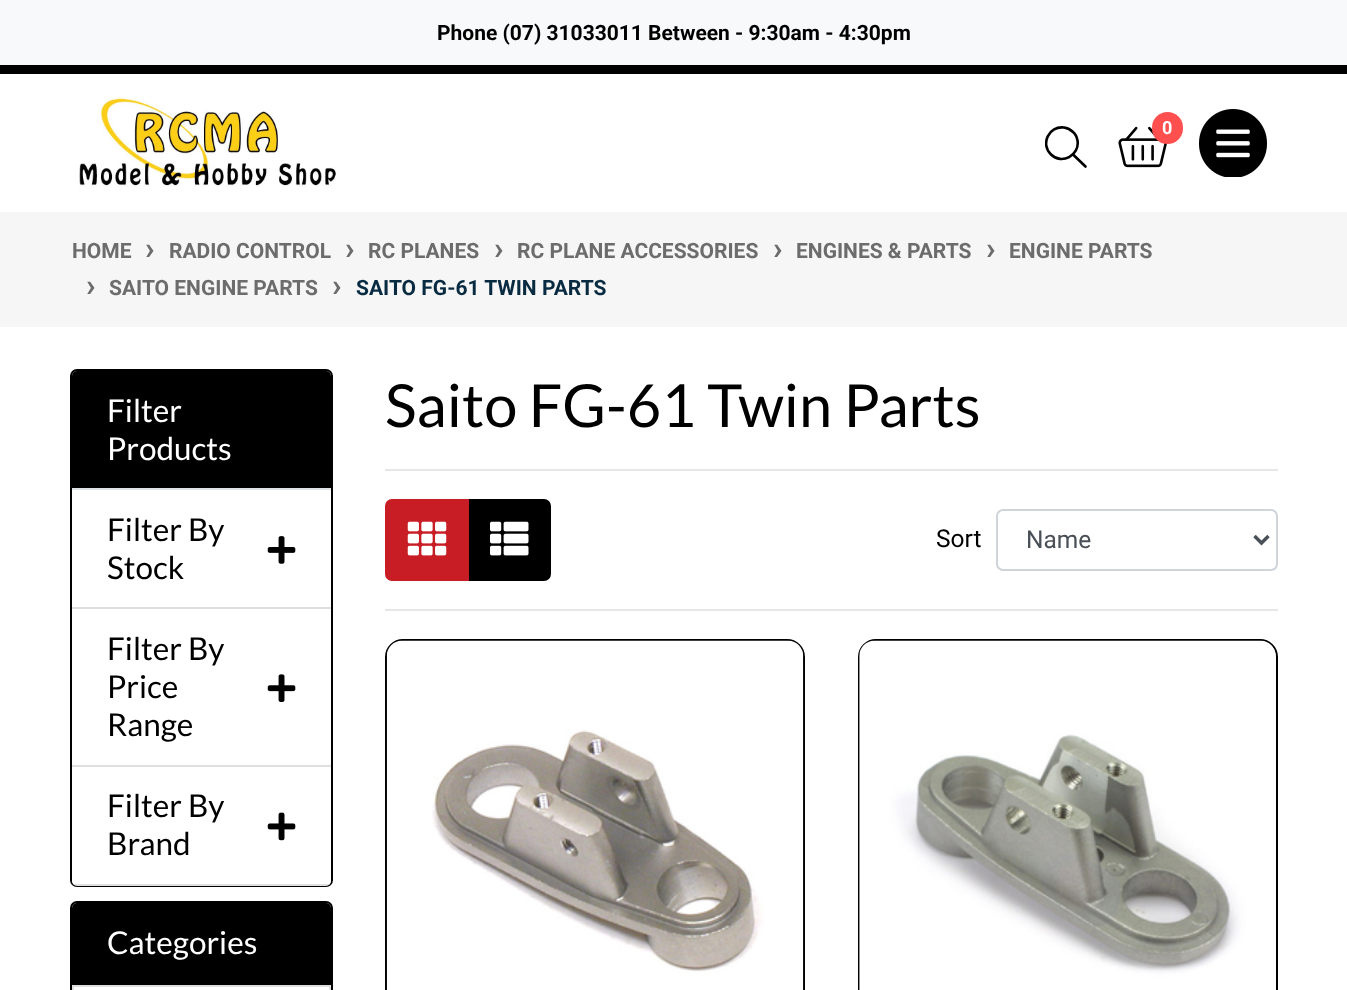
(async () => {
const canvas = document.querySelector("canvas")
canvas.width = 1347
canvas.height = 990
const c = canvas.getContext("2d")
c.miterLimit = 4
c.fontKerning = "normal"
function T(s,x,y){c.fillText(s,x,y)}
function R(x,y,w,h){c.fillRect(x,y,w,h)}
function Q(x,y,w,h,r){c.beginPath();c.roundRect(x,y,w,h,r);c.fill()}
async function I(src,x,y,w,h){const img=new Image();img.src=src;await img.decode();c.drawImage(img,x,y,w,h)}
let path
c.fillStyle="#fff"
R(0,0,1347,990)
c.fillStyle="#f8f9fa"
R(0,0,1347,65)
c.font="bold 21px Roboto"
c.fillStyle="#000"
T("Phone (07) 31033011 Between - 9:30am - 4:30pm",437,40)
c.fillStyle="#010101"
R(0,65,1347,9)
await I("1.png",79,96,257,91)
c.save()
c.beginPath()
c.rect(1045,126,42,42)
c.clip()
path = new Path2D("M1051 154.5c10.5 10.5 29 1 26.5-14c-.5-3-2-6.5-4.5-8.5c-2.5-2.5-5.5-4-9-4.5c-15-2-24 16.5-13 27z")
c.strokeStyle="#000"
c.lineWidth=2.6
c.lineJoin="round"
c.stroke(path)
c.restore()
path = new Path2D("M1073 154.5l12.5 12")
c.strokeStyle="#000"
c.lineWidth=2.6
c.lineCap="round"
c.lineJoin="round"
c.stroke(path)
await I("2.png",1118,126,49,42)
c.fillStyle="#ff4f4f"
Q(1152,112,31,32,15.5)
c.font="bold 18px Roboto"
c.fillStyle="#fff"
T("0",1162,134)
await I("3.png",1199,109,68,68)
c.fillStyle="#f6f6f6"
R(0,212,1347,115)
c.font="bold 21px Roboto"
c.fillStyle="#6c6c6c"
T("HOME",72,258)
c.font="bold 31.5px Roboto"
T("›",145,259)
c.font="bold 21px Roboto"
T("RADIO CONTROL",169,258)
c.font="bold 31.5px Roboto"
T("›",345,259)
c.font="bold 21px Roboto"
T("RC PLANES",368,258)
c.font="bold 31.5px Roboto"
T("›",494,259)
c.font="bold 21px Roboto"
T("RC PLANE ACCESSORIES",517,258)
c.font="bold 31.5px Roboto"
T("›",773,259)
c.font="bold 21px Roboto"
T("ENGINES & PARTS",796,258)
c.font="bold 31.5px Roboto"
T("›",986,259)
c.font="bold 21px Roboto"
T("ENGINE PARTS",1009,258)
c.font="bold 31.5px Roboto"
T("›",86,296)
c.font="bold 21px Roboto"
T("SAITO ENGINE PARTS",109,295)
c.font="bold 31.5px Roboto"
T("›",332,296)
c.font="bold 21px Roboto"
c.fillStyle="#092b41"
T("SAITO FG-61 TWIN PARTS",356,295)
c.beginPath()
c.roundRect(71,370,261,516,6)
c.lineWidth=2
c.lineJoin="miter"
c.stroke()
c.fillStyle="#000"
c.beginPath()
c.roundRect(72,371,259,119,[5,5,0,0])
c.fill()
c.fillStyle="#dee2e6"
R(72,488,259,2)
c.font="31.5px Lato"
c.fillStyle="#fff"
T("Filter",107,422)
T("Products",107,460)
c.fillStyle="#dfdfdf"
R(72,607,259,2)
c.fillStyle="#000"
T("Filter By",107,541)
await I("4.png",267,536,29,28)
T("Stock",107,579)
c.fillStyle="#dfdfdf"
R(72,765,259,2)
c.fillStyle="#000"
T("Filter By",107,660)
T("Price",107,698)
await I("5.png",267,674,29,28)
T("Range",107,736)
c.fillStyle="#fff"
c.beginPath()
c.roundRect(72,767,259,119,[0,0,5,5])
c.fill()
c.save()
c.beginPath()
c.roundRect(72,371,259,515,5)
c.clip()
c.fillStyle="#0000001f"
R(72,884,259,2)
c.restore()
c.fillStyle="#000"
T("Filter By",107,817)
await I("6.png",267,812,29,29)
T("Brand",107,855)
c.beginPath()
c.roundRect(71,902,261,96,6)
c.stroke()
c.beginPath()
c.roundRect(72,903,259,82,[5,5,0,0])
c.fill()
c.fillStyle="#fff"
T("Categories",107,954)
c.strokeStyle="#dfdfdf"
c.strokeRect(73,986,257,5)
c.font="59.5px Lato"
c.fillStyle="#000"
T("Saito FG-61 Twin Parts",385,427)
c.fillStyle="#e6e6e6"
R(385,469,893,2)
c.fillStyle="#000"
c.beginPath()
c.roundRect(468,500,82,80,[0,6,6,0])
c.fill()
c.strokeStyle="#000"
c.stroke()
c.fillStyle="#c81d24"
c.beginPath()
c.roundRect(386,500,82,80,[6,0,0,6])
c.fill()
c.strokeStyle="#c81d24"
c.stroke()
await I("7.png",407,521,40,35)
await I("8.png",490,521,39,35)
c.font="24.5px Roboto"
c.fillStyle="#000"
T("Sort",936,547)
c.beginPath()
c.roundRect(997,510,280,60,6)
c.strokeStyle="#ced4da"
c.stroke()
path = new Path2D("M1254.5 536l7 7l7-7")
c.strokeStyle="#495057"
c.lineWidth=3.5
c.lineCap="butt"
c.stroke(path)
c.fillStyle="#495057"
T("Name",1026,548)
c.fillStyle="#e6e6e6"
R(385,609,893,2)
c.beginPath()
c.roundRect(386,640,418,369,17)
c.strokeStyle="#000"
c.lineWidth=2
c.stroke()
await I("9.png",386,640,418,350)
c.beginPath()
c.roundRect(859,640,418,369,17)
c.stroke()
await I("10.png",859,640,417,350)
})()
